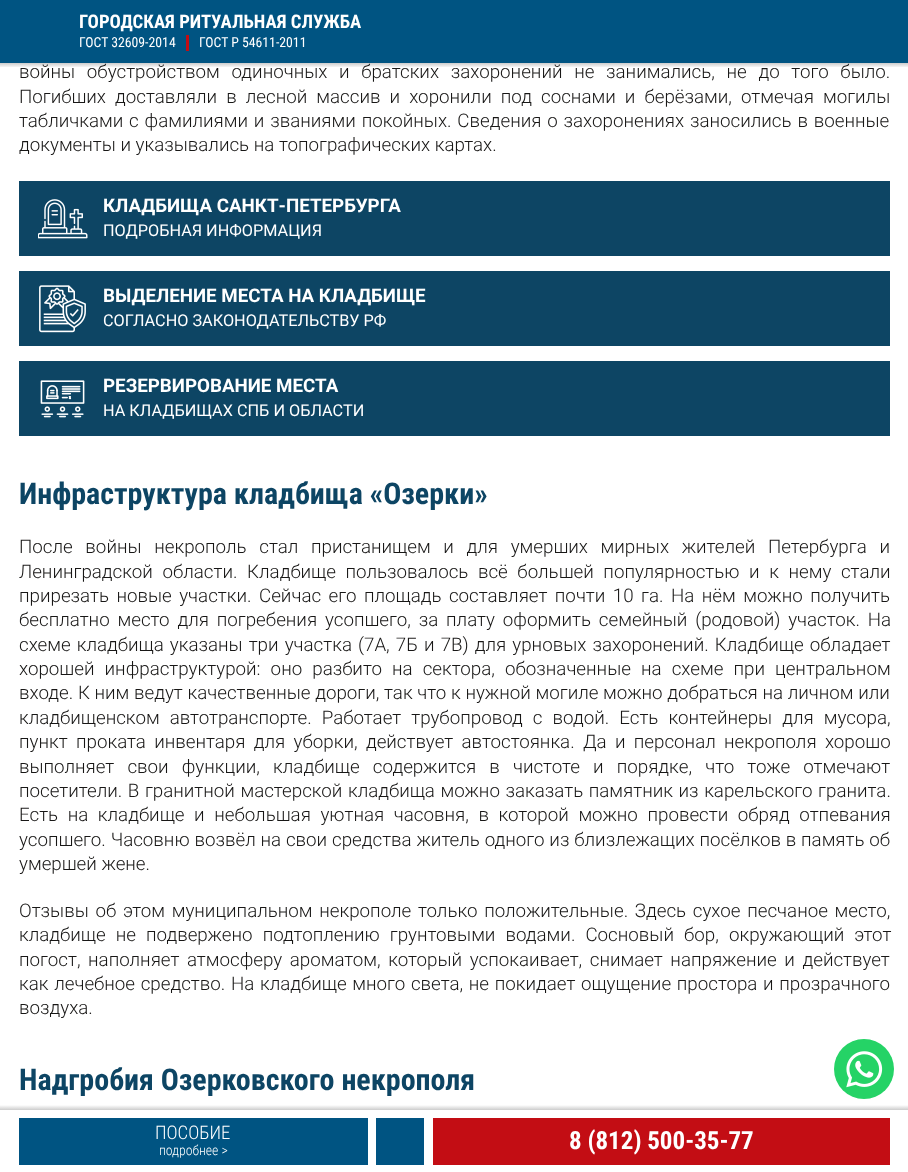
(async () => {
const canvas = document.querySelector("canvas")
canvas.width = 908
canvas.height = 1172
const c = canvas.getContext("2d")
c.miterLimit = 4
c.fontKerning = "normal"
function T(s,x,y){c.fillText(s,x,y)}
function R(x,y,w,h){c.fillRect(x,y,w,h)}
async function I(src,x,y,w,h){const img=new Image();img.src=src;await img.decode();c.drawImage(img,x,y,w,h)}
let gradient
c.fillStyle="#fff"
R(0,0,908,1172)
c.fillStyle="#005482"
R(0,0,908,63)
c.font="bold 18.75px Roboto Condensed"
c.fillStyle="#fff"
T("ГОРОДСКАЯ РИТУАЛЬНАЯ СЛУЖБА",79,28)
c.fillStyle="#c30d14"
R(186,35,3,16)
c.font="13.75px Roboto Condensed"
c.fillStyle="#fff"
T("ГОСТ 32609-2014",79,47)
T("ГОСТ Р 54611-2011",199,47)
gradient = c.createLinearGradient(454,68,454,63)
gradient.addColorStop(0,"#00000000")
gradient.addColorStop(1,"#00000033")
c.fillStyle = gradient
R(0,63,908,4)
c.wordSpacing="7.1px"
c.font="300 18.75px Roboto"
c.fillStyle="#181716"
T("войны обустройством одиночных и братских захоронений не занимались, не до того было.",19,78)
c.wordSpacing="4.5px"
T("Погибших доставляли в лесной массив и хоронили под соснами и берёзами, отмечая могилы",19,103)
c.wordSpacing="1.25px"
T("табличками с фамилиями и званиями покойных. Сведения о захоронениях заносились в военные",19,127)
c.wordSpacing="0px"
T("документы и указывались на топографических картах.",19,151)
c.fillStyle="#0d4564"
R(19,181,871,75)
await I("1.png",38,199,50,40)
c.font="bold 18.75px Roboto"
c.fillStyle="#fff"
T("КЛАДБИЩА САНКТ-ПЕТЕРБУРГА",103,212)
c.font="16.25px Roboto"
T("ПОДРОБНАЯ ИНФОРМАЦИЯ",103,236)
c.fillStyle="#0d4564"
R(19,271,871,75)
await I("2.png",39,285,47,48)
c.font="bold 18.75px Roboto"
c.fillStyle="#fff"
T("ВЫДЕЛЕНИЕ МЕСТА НА КЛАДБИЩЕ",103,302)
c.font="16.25px Roboto"
T("СОГЛАСНО ЗАКОНОДАТЕЛЬСТВУ РФ",103,326)
c.fillStyle="#0d4564"
R(19,361,871,75)
await I("3.png",40,380,45,38)
c.font="bold 18.75px Roboto"
c.fillStyle="#fff"
T("РЕЗЕРВИРОВАНИЕ МЕСТА",103,392)
c.font="16.25px Roboto"
T("НА КЛАДБИЩАХ СПБ И ОБЛАСТИ",103,416)
c.font="bold 30px Roboto Condensed"
c.fillStyle="#0d4564"
T("Инфраструктура кладбища «Озерки»",19,504)
c.wordSpacing="8.1px"
c.font="300 18.75px Roboto"
c.fillStyle="#181716"
T("После войны некрополь стал пристанищем и для умерших мирных жителей Петербурга и",19,553)
c.wordSpacing="5px"
T("Ленинградской области. Кладбище пользовалось всё большей популярностью и к нему стали",19,578)
c.wordSpacing="2.9px"
T("прирезать новые участки. Сейчас его площадь составляет почти 10 га. На нём можно получить",19,602)
c.wordSpacing="3.25px"
T("бесплатно место для погребения усопшего, за плату оформить семейный (родовой) участок. На",19,626)
c.wordSpacing="1.5px"
T("схеме кладбища указаны три участка (7А, 7Б и 7В) для урновых захоронений. Кладбище обладает",19,651)
c.wordSpacing="5.5px"
T("хорошей инфраструктурой: оно разбито на сектора, обозначенные на схеме при центральном",19,675)
c.wordSpacing="0.1px"
T("входе. К ним ведут качественные дороги, так что к нужной могиле можно добраться на личном или",19,699)
c.wordSpacing="5.5px"
T("кладбищенском автотранспорте. Работает трубопровод с водой. Есть контейнеры для мусора,",19,724)
c.wordSpacing="3.75px"
T("пункт проката инвентаря для уборки, действует автостоянка. Да и персонал некрополя хорошо",19,748)
c.wordSpacing="8.6px"
T("выполняет свои функции, кладбище содержится в чистоте и порядке, что тоже отмечают",19,773)
c.wordSpacing="1px"
T("посетители. В гранитной мастерской кладбища можно заказать памятник из карельского гранита.",19,797)
c.wordSpacing="5px"
T("Есть на кладбище и небольшая уютная часовня, в которой можно провести обряд отпевания",19,821)
c.wordSpacing="0.25px"
T("усопшего. Часовню возвёл на свои средства житель одного из близлежащих посёлков в память об",19,846)
c.wordSpacing="0px"
T("умершей жене.",19,870)
c.wordSpacing="2.1px"
T("Отзывы об этом муниципальном некрополе только положительные. Здесь сухое песчаное место,",19,917)
c.wordSpacing="5.5px"
T("кладбище не подвержено подтоплению грунтовыми водами. Сосновый бор, окружающий этот",19,941)
c.wordSpacing="3px"
T("погост, наполняет атмосферу ароматом, который успокаивает, снимает напряжение и действует",19,966)
c.wordSpacing="1.1px"
T("как лечебное средство. На кладбище много света, не покидает ощущение простора и прозрачного",19,990)
c.wordSpacing="0px"
T("воздуха.",19,1014)
c.font="bold 30px Roboto Condensed"
c.fillStyle="#0d4564"
T("Надгробия Озерковского некрополя",19,1090)
gradient = c.createLinearGradient(454,1105,454,1110)
gradient.addColorStop(0,"#fff")
gradient.addColorStop(1,"#ccc")
c.fillStyle = gradient
R(0,1105,908,5)
c.fillStyle="#005482"
R(19,1118,349,47)
c.font="300 18.75px Roboto Condensed"
c.fillStyle="#fff"
T("ПОСОБИЕ",155,1139)
c.font="300 13.75px Roboto Condensed"
T("подробнее >",159,1155)
c.fillStyle="#005482"
R(376,1118,48,47)
c.fillStyle="#c30d14"
R(433,1118,457,47)
c.font="bold 25px Roboto Condensed"
c.fillStyle="#fff"
T("8 (812) 500-35-77",569,1149)
c.fillStyle="#25d366"
c.beginPath()
c.arc(864,1069,30,0,7)
c.fill()
await I("4.png",846,1051,37,37)
})()
